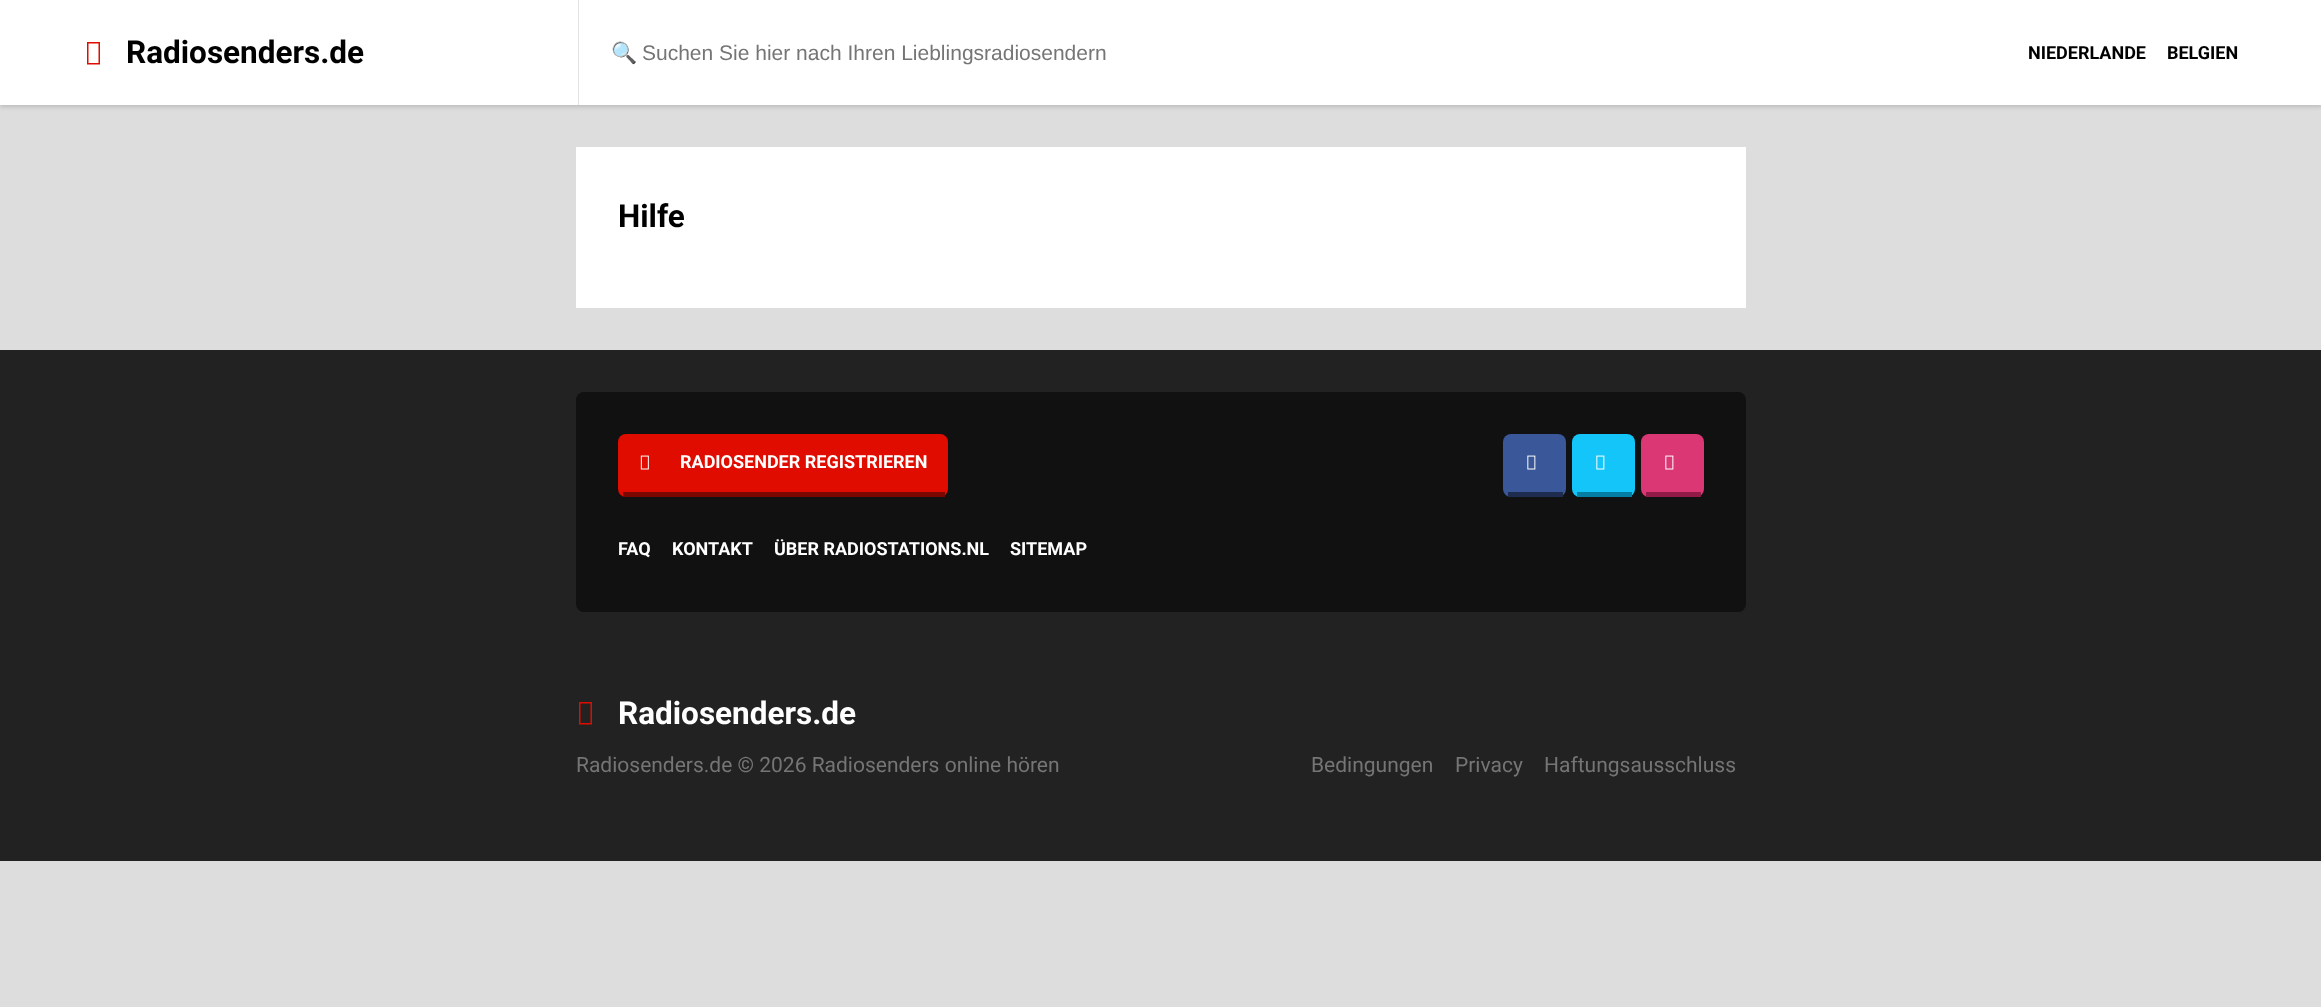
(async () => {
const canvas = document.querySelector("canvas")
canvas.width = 2321
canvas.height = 1007
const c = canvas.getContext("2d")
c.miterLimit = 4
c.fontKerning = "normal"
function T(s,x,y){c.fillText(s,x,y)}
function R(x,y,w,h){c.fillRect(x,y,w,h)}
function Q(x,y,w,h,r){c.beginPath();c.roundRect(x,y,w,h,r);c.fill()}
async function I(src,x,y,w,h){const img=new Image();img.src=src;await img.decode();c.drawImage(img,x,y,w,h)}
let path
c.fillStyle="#ddd"
R(0,0,2321,1007)
c.fillStyle="#00000026"
c.filter="blur(2px)"
c.beginPath()
c.rect(0,2,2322,105)
c.fill()
c.filter="none"
c.fillStyle="#fff"
R(0,0,2321,105)
c.fillStyle="#e10c00"
path = new Path2D("M87 64.5v-22.5h13v22.5zm1.5-1.5h10v-19.5h-10z")
c.fill(path)
c.font="bold 31.5px Roboto"
c.fillStyle="#000"
T("Radiosenders.de",126,63)
c.fillStyle="#e3e3e3"
R(578,0,1,105)
c.font="100 21px Noto Sans"
c.fillStyle="#757575"
T("🔍",611,60)
c.font="21px Liberation Sans"
T("Suchen Sie hier nach Ihren Lieblingsradiosendern",642,60)
c.font="bold 18px Roboto"
c.fillStyle="#000"
T("NIEDERLANDE",2028,59)
T("BELGIEN",2167,59)
c.fillStyle="#fff"
R(576,147,1170,161)
c.font="bold 31.5px Roboto"
c.fillStyle="#000"
T("Hilfe",618,227)
c.fillStyle="#222"
R(0,350,2321,511)
c.fillStyle="#111"
Q(576,392,1170,220,8)
c.fillStyle="#e10c00"
Q(618,434,330,63,8)
c.fillStyle="#7b0700"
R(623,492,322,5)
await I("1.png",640,455,9,15)
c.font="bold 18px Roboto"
c.fillStyle="#fff"
T("RADIOSENDER REGISTRIEREN",680,468)
c.fillStyle="#3a5799"
Q(1503,434,63,63,8)
c.fillStyle="#1e2d4f"
R(1508,492,55,5)
await I("2.png",1527,455,9,15)
c.fillStyle="#14c5f9"
Q(1572,434,63,63,8)
c.fillStyle="#047fa3"
R(1577,492,55,5)
await I("3.png",1596,455,9,15)
c.fillStyle="#db3774"
Q(1641,434,63,63,8)
c.fillStyle="#921a47"
R(1646,492,55,5)
await I("4.png",1665,455,9,15)
c.fillStyle="#fff"
T("FAQ",618,555)
T("KONTAKT",672,555)
T("ÜBER RADIOSTATIONS.NL",774,555)
T("SITEMAP",1010,555)
c.fillStyle="#e10c00"
path = new Path2D("M579 724.5v-22.5h13v22.5zm1.5-1.5h10v-19.5h-10z")
c.fill(path)
c.font="bold 31.5px Roboto"
c.fillStyle="#fff"
T("Radiosenders.de",618,724)
c.font="21px Roboto"
c.fillStyle="#757575"
T("Radiosenders.de © 2026 Radiosenders online hören",576,772)
T("Bedingungen",1311,772)
T("Privacy",1455,772)
T("Haftungsausschluss",1544,772)
})()
